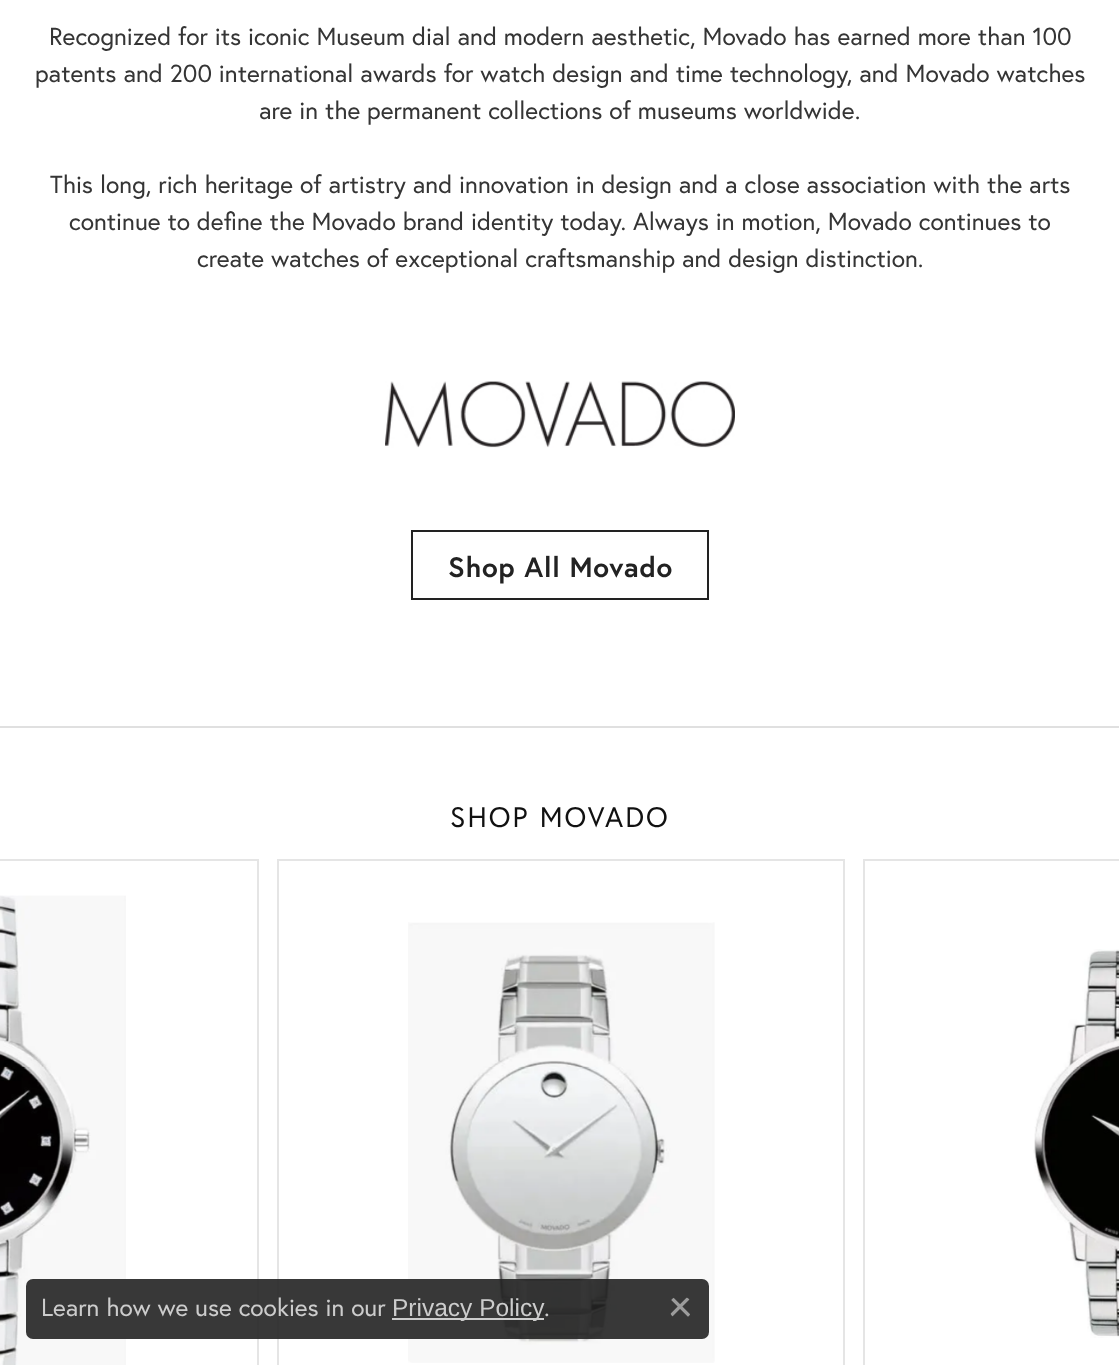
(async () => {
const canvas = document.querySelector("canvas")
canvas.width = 1119
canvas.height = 1365
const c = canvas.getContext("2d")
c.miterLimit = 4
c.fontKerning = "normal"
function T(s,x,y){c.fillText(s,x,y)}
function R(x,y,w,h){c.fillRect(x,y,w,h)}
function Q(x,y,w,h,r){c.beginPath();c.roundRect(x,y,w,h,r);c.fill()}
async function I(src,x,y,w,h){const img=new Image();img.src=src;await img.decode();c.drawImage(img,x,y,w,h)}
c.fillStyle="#fff"
R(0,0,1119,1365)
c.font="24.6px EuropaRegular"
c.fillStyle="#353535"
T("Recognized for its iconic Museum dial and modern aesthetic, Movado has earned more than 100",49,45)
T("patents and 200 international awards for watch design and time technology, and Movado watches",35,82)
T("are in the permanent collections of museums worldwide.",259,119)
T("This long, rich heritage of artistry and innovation in design and a close association with the arts",50,193)
T("continue to define the Movado brand identity today. Always in motion, Movado continues to",69,230)
T("create watches of exceptional craftsmanship and design distinction.",197,267)
await I("1.png",385,381,350,67)
c.strokeStyle="#222"
c.lineWidth=2
c.strokeRect(412,531,296,68)
c.letterSpacing="0.75px"
c.font="bold 28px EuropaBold"
c.fillStyle="#222"
T("Shop All Movado",448,577)
c.fillStyle="#e0e0e0"
R(0,726,1119,2)
c.letterSpacing="2.1px"
c.font="28.25px EuropaRegular"
c.fillStyle="#111"
T("SHOP MOVADO",450,827)
c.strokeStyle="#e5e5e5"
c.strokeRect(-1,860,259,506)
await I("2.png",0,895,126,470)
c.strokeRect(278,860,566,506)
await I("3.png",408,922,307,441)
c.strokeRect(864,860,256,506)
await I("4.png",1033,949,86,389)
c.fillStyle="#222222e6"
Q(26,1279,683,60,7)
c.letterSpacing="0px"
c.font="24.5px EuropaRegular"
c.fillStyle="#ccc"
T("Learn how we use cookies in our",41,1316)
R(392,1318,152,2)
c.font="24.5px Liberation Sans"
T("Privacy Policy",392,1316)
c.font="24.5px EuropaRegular"
T(".",544,1316)
await I("5.png",670,1297,20,20)
})()
